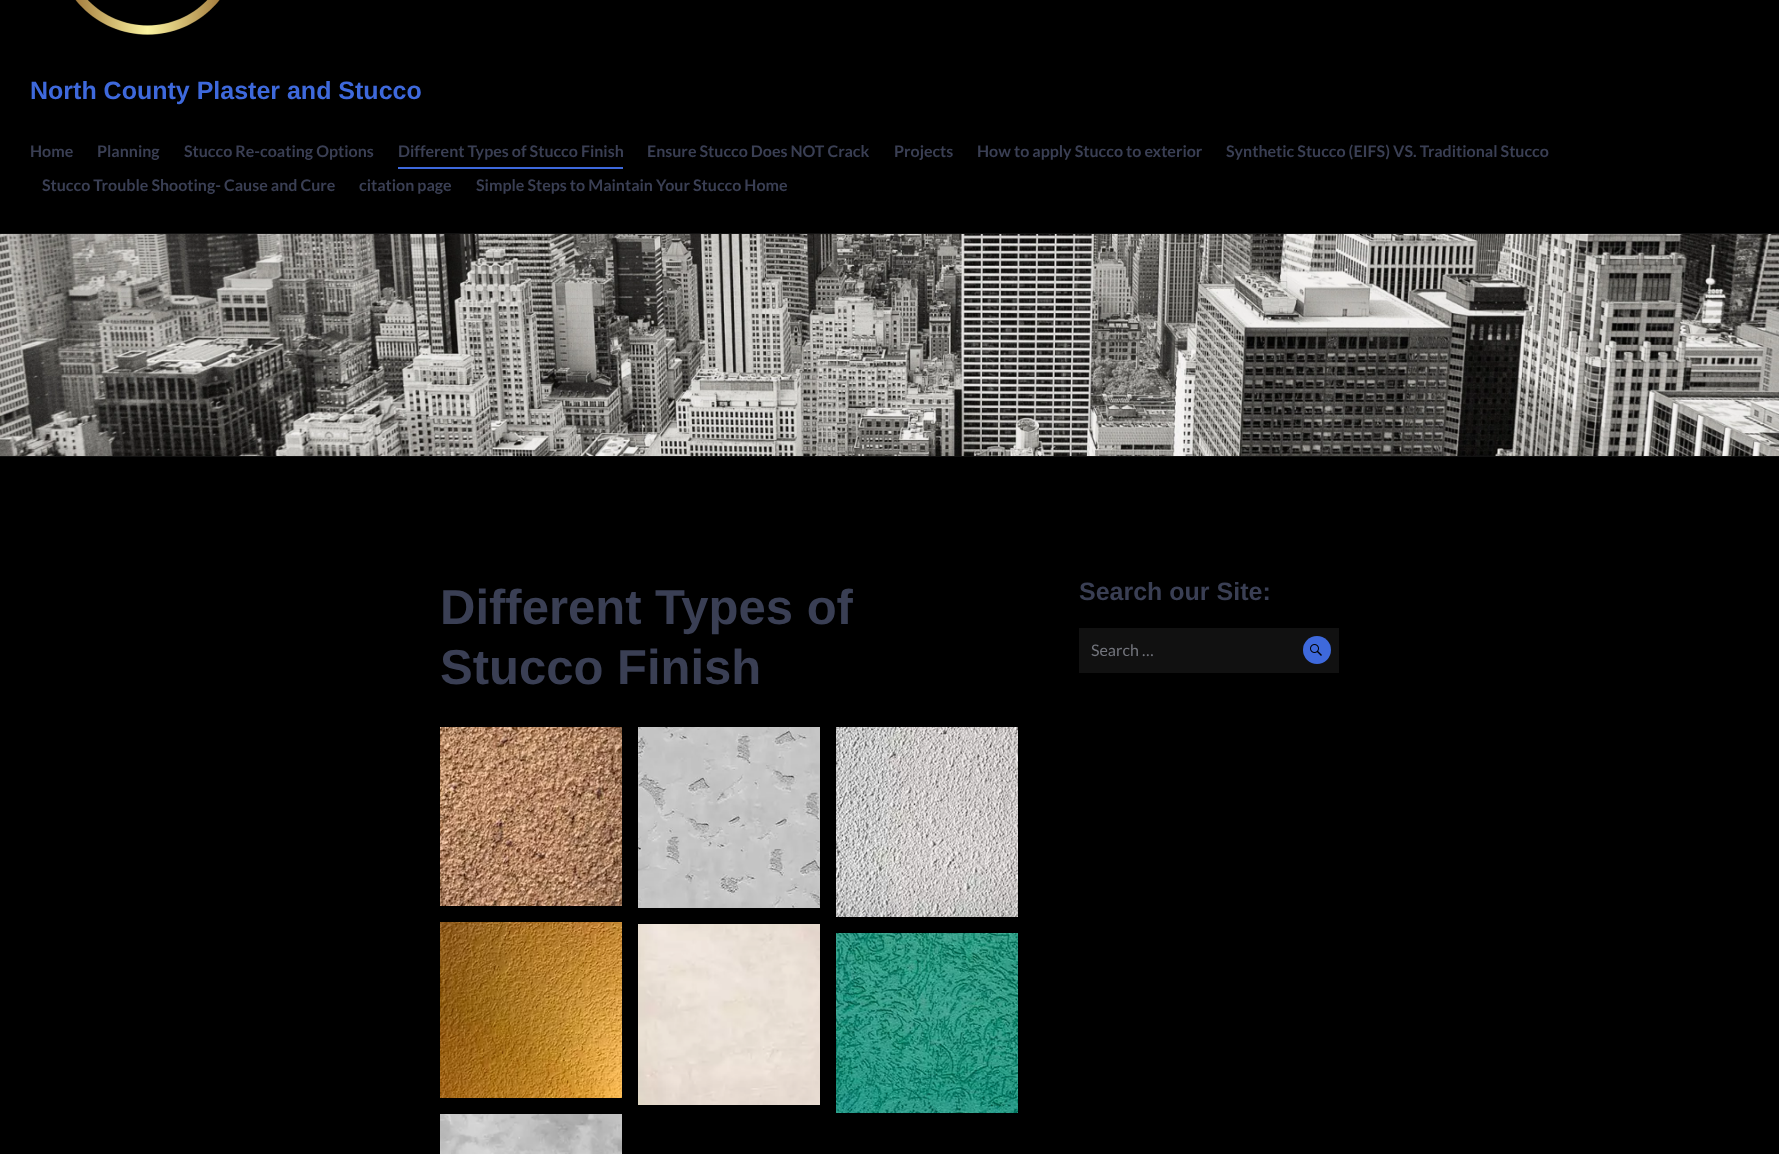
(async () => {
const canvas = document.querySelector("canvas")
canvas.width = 1779
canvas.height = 1154
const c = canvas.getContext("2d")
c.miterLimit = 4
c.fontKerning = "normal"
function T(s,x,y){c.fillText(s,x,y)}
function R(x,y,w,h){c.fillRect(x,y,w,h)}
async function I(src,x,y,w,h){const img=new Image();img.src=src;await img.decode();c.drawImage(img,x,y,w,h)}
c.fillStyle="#000"
R(0,0,1779,1154)
c.fillStyle="#111"
R(0,233,1779,1)
await I("1.png",75,0,145,35)
c.font="bold 25px Arimo"
c.fillStyle="#3e69dc"
T("North County Plaster and Stucco",30,99)
c.font="bold 16px Lato"
c.fillStyle="#3a3f54"
T("Home",30,157)
T("Planning",97,157)
T("Stucco Re-coating Options",184,157)
c.fillStyle="#3e69dc"
R(398,167,225,2)
c.fillStyle="#3a3f54"
T("Different Types of Stucco Finish",398,157)
T("Ensure Stucco Does NOT Crack",647,157)
T("Projects",894,157)
T("How to apply Stucco to exterior",977,157)
T("Synthetic Stucco (EIFS) VS. Traditional Stucco",1226,157)
T("Stucco Trouble Shooting- Cause and Cure",42,191)
T("citation page",359,191)
T("Simple Steps to Maintain Your Stucco Home",476,191)
c.fillStyle="#111"
R(0,456,1779,1)
await I("2.png",0,234,1779,222)
c.font="bold 49px Arimo"
c.fillStyle="#3a3f54"
T("Different Types of",440,624)
T("Stucco Finish",440,684)
await I("3.png",440,727,182,179)
await I("4.png",638,727,182,181)
await I("5.png",836,727,182,190)
await I("6.png",440,922,182,176)
await I("7.png",638,924,182,181)
await I("8.png",836,933,182,180)
await I("9.png",440,1114,182,40)
c.font="bold 25px Arimo"
T("Search our Site:",1079,600)
c.fillStyle="#111"
R(1079,628,260,45)
c.font="16px Lato"
c.fillStyle="#73757d"
T("Search …",1091,656)
c.fillStyle="#3e69dc"
c.beginPath()
c.arc(1317,650,14,0,7)
c.fill()
await I("10.png",1310,644,12,12)
})()
